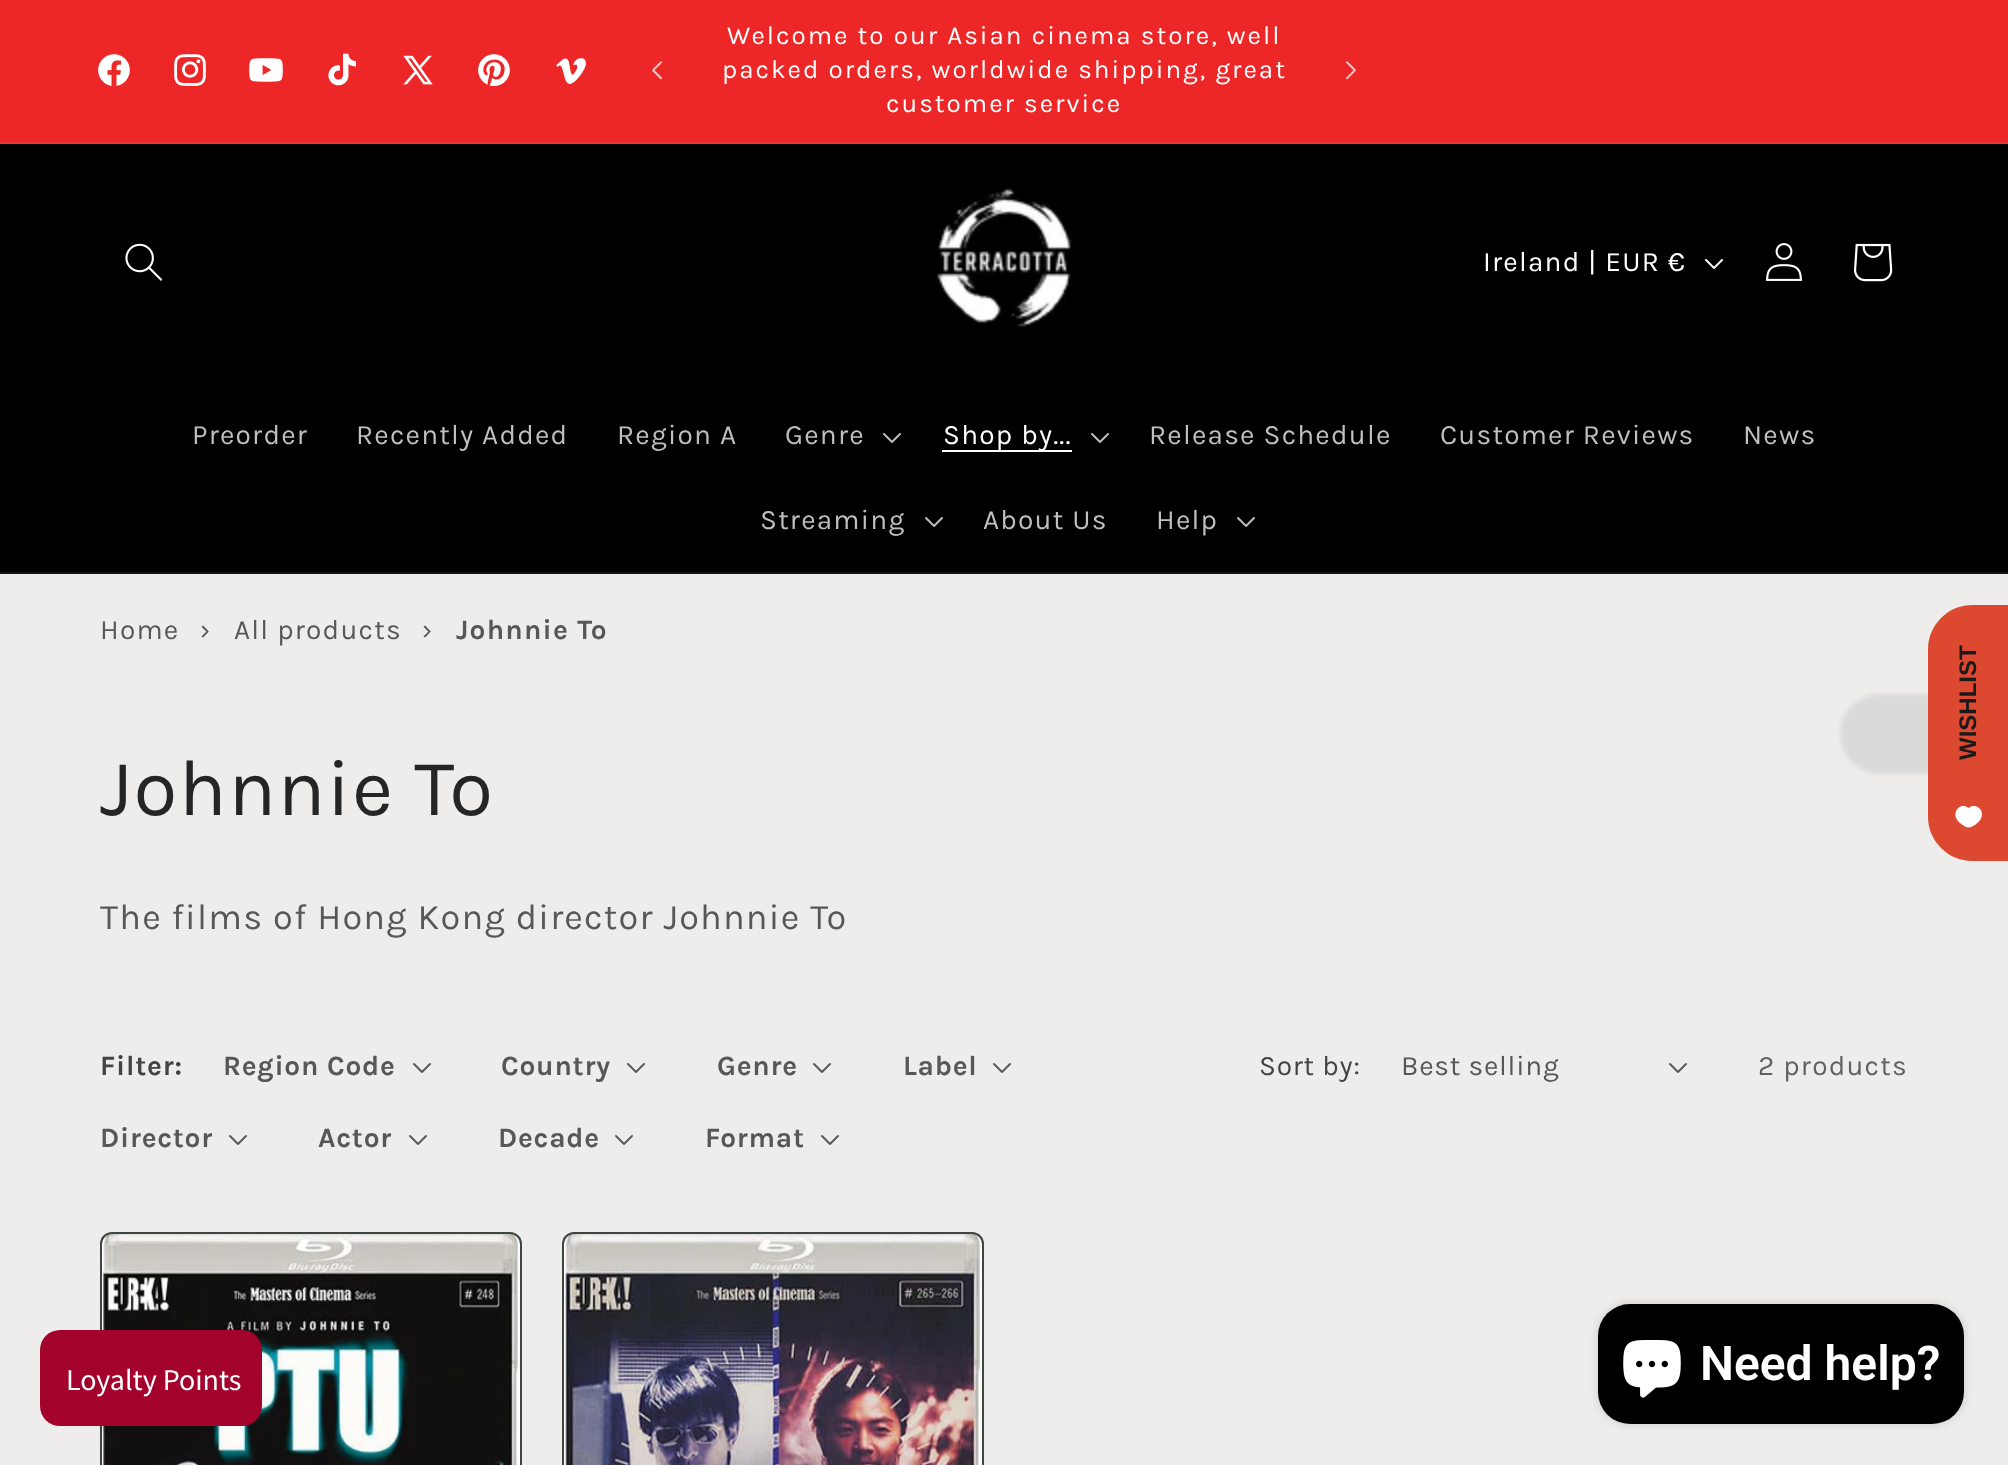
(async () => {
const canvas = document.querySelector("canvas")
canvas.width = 2008
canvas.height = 1465
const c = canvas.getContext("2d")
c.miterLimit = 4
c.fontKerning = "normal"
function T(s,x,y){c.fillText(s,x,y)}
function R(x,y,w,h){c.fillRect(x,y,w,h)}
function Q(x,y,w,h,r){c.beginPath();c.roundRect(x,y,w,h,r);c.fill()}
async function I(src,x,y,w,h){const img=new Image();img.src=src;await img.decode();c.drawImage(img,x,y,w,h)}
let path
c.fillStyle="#efecec"
R(0,0,2008,1465)
c.fillStyle="#ed2727"
R(0,0,2008,142)
c.fillStyle="#ee3838"
R(0,142,2008,2)
await I("1.png",98,54,32,32)
await I("2.png",174,54,32,32)
await I("3.png",249,58,34,24)
await I("4.png",328,53,28,33)
await I("5.png",403,55,30,30)
await I("6.png",478,54,32,32)
await I("7.png",556,58,30,26)
await I("8.png",652,61,10,19)
c.letterSpacing="2px"
c.font="26px Karla"
c.fillStyle="#fff"
T("Welcome to our Asian cinema store, well",727,44)
T("packed orders, worldwide shipping, great",722,78)
T("customer service",886,112)
await I("9.png",1346,61,10,19)
c.fillStyle="#000"
R(0,144,2008,428)
c.fillStyle="#141414"
R(0,572,2008,2)
await I("10.png",125,243,37,38)
await I("11.png",937,187,135,140)
c.letterSpacing="1.2px"
c.font="28px Karla"
c.fillStyle="#fff"
T("Ireland | EUR €",1483,271)
await I("12.png",1705,259,18,10)
await I("13.png",1766,243,36,38)
await I("14.png",1854,243,39,39)
c.fillStyle="#bfbfbf"
T("Preorder",192,444)
T("Recently Added",356,444)
T("Region A",617,444)
T("Genre",785,444)
await I("15.png",883,433,18,10)
c.fillStyle="#fff"
R(942,450,130,2)
T("Shop by...",943,444)
await I("15.png",1091,433,18,10)
c.fillStyle="#bfbfbf"
T("Release Schedule",1149,444)
T("Customer Reviews",1440,444)
T("News",1743,444)
T("Streaming",760,529)
await I("15.png",925,517,18,10)
T("About Us",983,529)
T("Help",1156,529)
await I("15.png",1237,517,18,10)
c.fillStyle="#585757"
T("Home",100,639)
T("›",200,639)
T("All products",234,639)
T("›",422,639)
c.font="bold 28px Karla"
T("Johnnie To",456,639)
c.fillStyle="#dadada"
c.filter="blur(2px)"
c.beginPath()
c.roundRect(1840,694,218,80,44)
c.fill()
c.filter="none"
c.fillStyle="#dc4930"
path = new Path2D("M1928 817v-168c0-24 20-44 44-44h36v256h-36c-24 0-44-20-44-44z")
c.fill(path)
c.letterSpacing="0px"
c.font="bold 24px Liberation Sans"
c.fillStyle="#1a1a1a"
c.save()
c.translate(1976,760)
c.rotate(-90 * Math.PI / 180)
c.fillText("WISHLIST",0,0)
c.restore()
c.fillStyle="#fff"
path = new Path2D("M1968.5 808c-8-7.5-21 6.5-6.5 16.5c1.5 1 4.5 3 6.5 3c2.5 0 5-2 7-3c14.5-10 1.5-24-7-16.5z")
c.fill(path)
c.letterSpacing="1.2px"
c.font="80px Karla"
c.fillStyle="#252525"
T("Johnnie To",100,815)
c.font="36px Karla"
c.fillStyle="#585757"
T("The films of Hong Kong director Johnnie To",100,929)
c.letterSpacing="0.75px"
c.font="bold 28px Karla"
c.fillStyle="#434343"
T("Filter:",100,1075)
c.fillStyle="#585757"
T("Region Code",223,1075)
await I("16.png",413,1063,18,10)
T("Country",501,1075)
await I("16.png",627,1063,18,10)
T("Genre",717,1075)
await I("16.png",813,1063,18,10)
T("Label",903,1075)
await I("16.png",993,1063,18,10)
T("Director",100,1147)
await I("16.png",229,1135,18,10)
T("Actor",318,1147)
await I("16.png",409,1135,18,10)
T("Decade",498,1147)
await I("16.png",615,1135,18,10)
T("Format",705,1147)
await I("16.png",821,1135,18,10)
c.font="28px Karla"
c.fillStyle="#434343"
T("Sort by:",1259,1075)
c.fillStyle="#585757"
T("Best selling",1401,1075)
await I("16.png",1669,1063,18,10)
c.letterSpacing="1.2px"
c.fillStyle="#626161"
T("2 products",1758,1075)
c.fillStyle="#2c332f"
Q(100,1232,422,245,12)
c.beginPath()
c.roundRect(101,1233,420,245,11)
c.strokeStyle="#efecec1a"
c.lineWidth=2
c.stroke()
await I("17.png",102,1234,418,231)
Q(562,1232,422,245,12)
c.beginPath()
c.roundRect(563,1233,420,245,11)
c.stroke()
await I("18.png",564,1234,418,231)
await I("19.png",40,1330,222,96)
c.fillStyle="#00000026"
c.filter="blur(5px)"
c.beginPath()
c.roundRect(1598,1304,366,120,32)
c.fill()
c.filter="none"
c.fillStyle="#000"
Q(1598,1304,366,120,32)
await I("20.png",1623,1340,58,58)
c.letterSpacing="0px"
c.font="600 48px Roboto"
c.fillStyle="#fff"
T("Need help?",1700,1380)
})()
